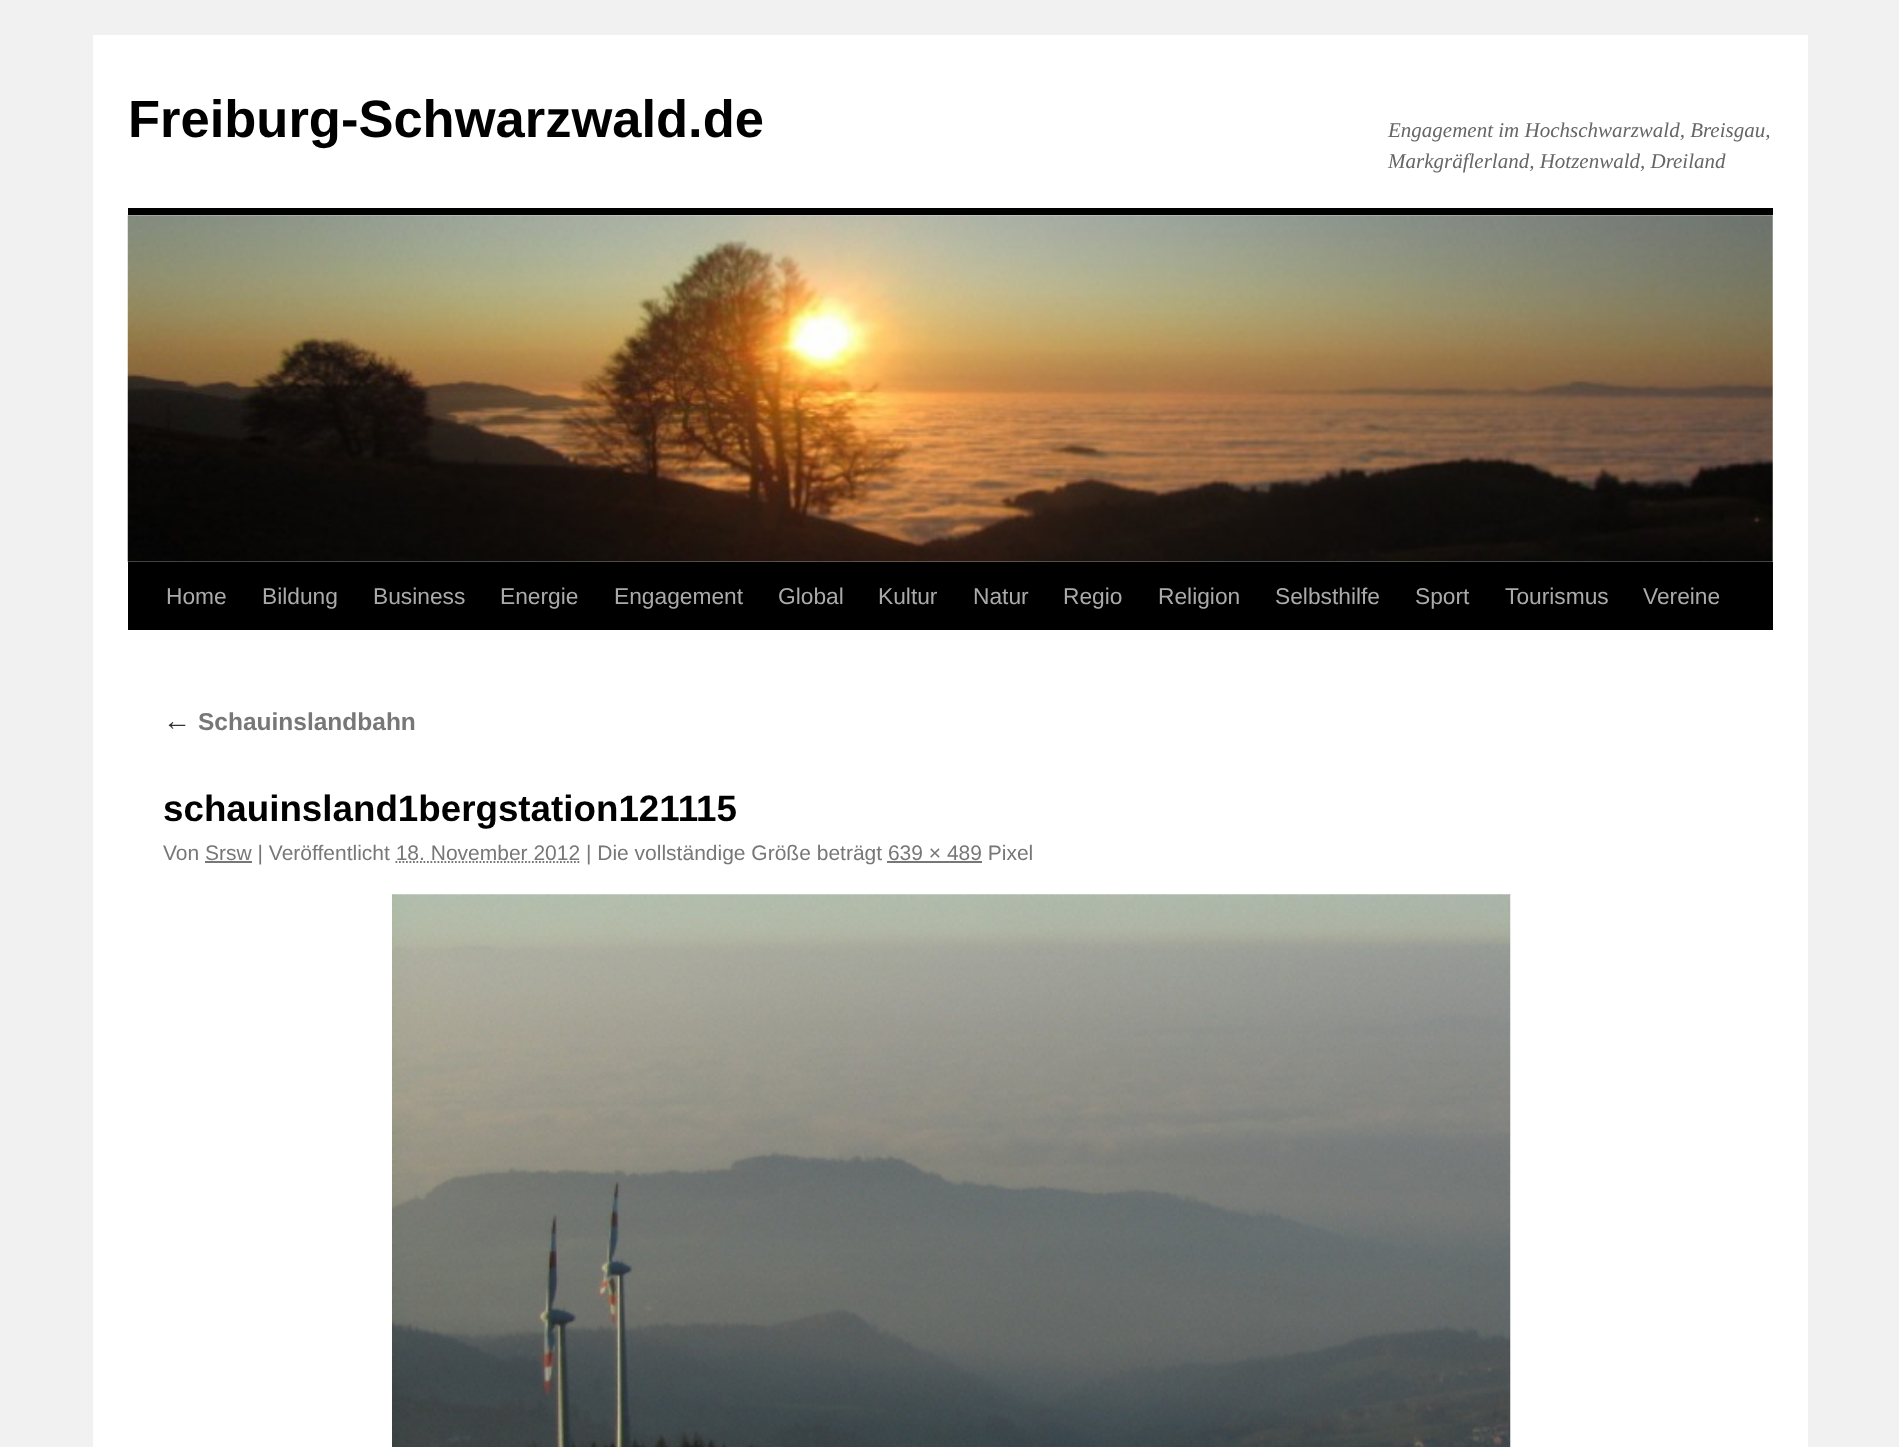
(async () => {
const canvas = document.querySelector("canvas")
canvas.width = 1899
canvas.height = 1447
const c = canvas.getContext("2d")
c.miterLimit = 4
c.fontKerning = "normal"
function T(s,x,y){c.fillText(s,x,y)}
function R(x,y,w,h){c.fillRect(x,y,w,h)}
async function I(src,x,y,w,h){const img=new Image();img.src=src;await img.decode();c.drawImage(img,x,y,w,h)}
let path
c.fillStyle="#f1f1f1"
R(0,0,1899,1447)
c.fillStyle="#fff"
R(93,35,1715,1412)
c.font="bold 52.5px Liberation Sans"
c.fillStyle="#000"
T("Freiburg-Schwarzwald.de",128,137)
c.font="italic 21px Liberation Serif"
c.fillStyle="#666"
T("Engagement im Hochschwarzwald, Breisgau,",1388,137)
T("Markgräflerland, Hotzenwald, Dreiland",1388,168)
c.fillStyle="#000"
R(128,208,1645,7)
R(128,562,1645,68)
await I("1.png",127,215,1646,347)
c.font="22.75px Liberation Sans"
c.fillStyle="#aaa"
T("Home",166,604)
T("Bildung",262,604)
T("Business",373,604)
T("Energie",500,604)
T("Engagement",614,604)
T("Global",778,604)
T("Kultur",878,604)
T("Natur",973,604)
T("Regio",1063,604)
T("Religion",1158,604)
T("Selbsthilfe",1275,604)
T("Sport",1415,604)
T("Tourismus",1505,604)
T("Vereine",1643,604)
c.font="italic 28px Liberation Serif"
c.fillStyle="#333"
T("←",163,730)
c.font="bold 24.5px Liberation Sans"
c.fillStyle="#777"
T("Schauinslandbahn",198,730)
c.font="bold 36.75px Liberation Sans"
c.fillStyle="#000"
T("schauinsland1bergstation121115",163,821)
c.font="21px Liberation Sans"
c.fillStyle="#777"
T("Von Srsw | Veröffentlicht 18. November 2012 | Die vollständige Größe beträgt 639 × 489 Pixel",163,860)
R(205,861,47,2)
path = new Path2D("M395.5 862h184.5")
c.strokeStyle="#777"
c.lineWidth=1.8
c.setLineDash([1.75,1.75])
c.stroke(path)
R(887,861,95,2)
await I("2.png",392,894,1119,553)
})()
